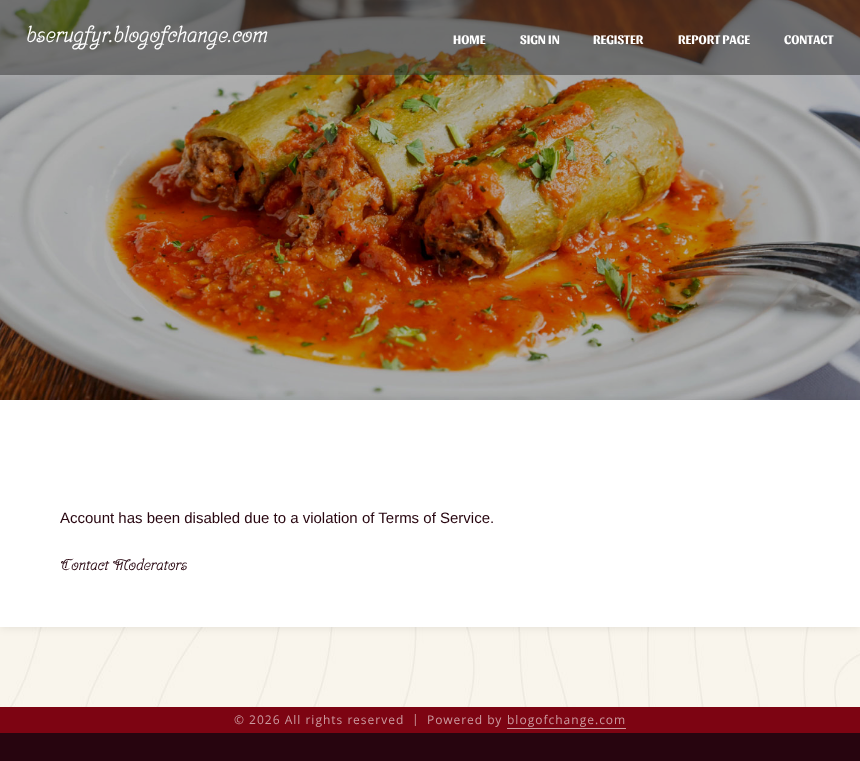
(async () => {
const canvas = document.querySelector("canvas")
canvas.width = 860
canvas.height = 761
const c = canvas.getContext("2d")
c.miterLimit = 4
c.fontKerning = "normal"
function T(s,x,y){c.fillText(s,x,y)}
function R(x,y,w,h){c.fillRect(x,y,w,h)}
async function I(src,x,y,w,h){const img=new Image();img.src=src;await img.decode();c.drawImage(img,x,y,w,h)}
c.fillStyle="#fff"
R(0,0,860,761)
await I("1.png",0,627,860,80)
await I("2.png",0,0,860,400)
c.fillStyle="#2f2f2f80"
R(0,0,860,75)
c.font="bold 21px Srisakdi"
c.fillStyle="#fff"
T("bserugfyr.blogofchange.com",26,42)
c.font="bold 13px Sansita"
T("HOME",453,44)
T("SIGN IN",520,44)
T("REGISTER",593,44)
T("REPORT PAGE",678,44)
T("CONTACT",784,44)
c.fillStyle="#0000001a"
c.filter="blur(5px)"
c.beginPath()
c.rect(0,400,860,227)
c.fill()
c.filter="none"
c.fillStyle="#fff"
R(0,400,860,227)
c.font="15px Liberation Sans"
c.fillStyle="#27050f"
T("Account has been disabled due to a violation of Terms of Service.",60,523)
c.font="bold 15px Srisakdi"
T("Contact Moderators",60,570)
c.fillStyle="#7d0412"
R(0,707,860,26)
c.letterSpacing="1px"
c.font="12px Open Sans"
c.fillStyle="#cb9ba0"
T("© 2026 All rights reserved",234,724)
T("|",412,723)
T("Powered by",427,724)
T("blogofchange.com",507,724)
R(507,728,119,1)
c.fillStyle="#27050f"
R(0,733,860,28)
})()
